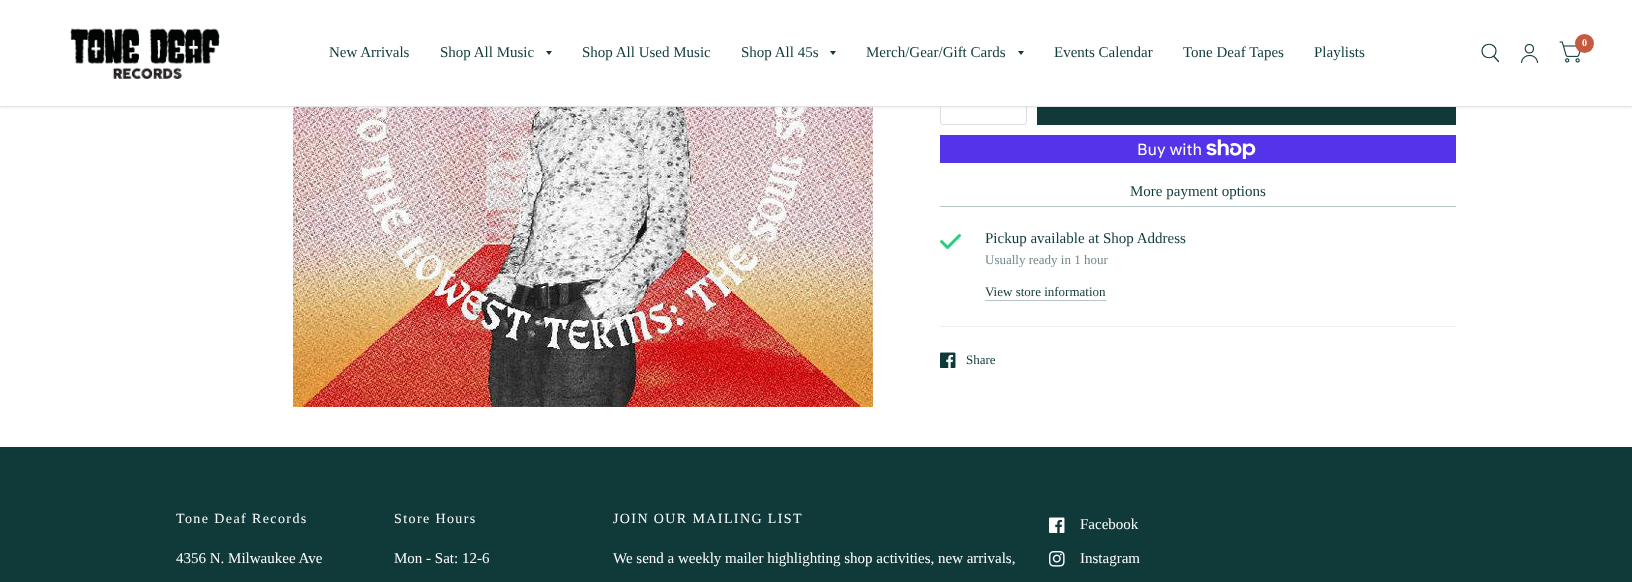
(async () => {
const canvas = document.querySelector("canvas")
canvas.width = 1632
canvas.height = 582
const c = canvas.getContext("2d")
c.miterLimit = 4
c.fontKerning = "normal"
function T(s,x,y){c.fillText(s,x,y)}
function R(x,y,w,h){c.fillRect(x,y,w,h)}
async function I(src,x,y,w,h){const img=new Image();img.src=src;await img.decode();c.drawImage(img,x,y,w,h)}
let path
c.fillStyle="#fff"
R(0,0,1632,582)
c.beginPath()
c.roundRect(940.5,73.5,86,51,2.5)
c.strokeStyle="#dedede"
c.stroke()
R(940,73,87,33)
c.fillStyle="#eee"
R(0,106,1632,1)
await I("4.png",293,107,580,300)
c.fillStyle="#103a3a"
R(1037,107,419,18)
c.save()
c.beginPath()
c.rect(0,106,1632,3)
c.clip()
c.fillStyle="#0000000f"
c.filter="blur(2.5px)"
c.beginPath()
c.rect(0,2,1632,106)
c.fill()
c.filter="none"
c.restore()
await I("1.png",70,28,150,51)
path = new Path2D("M1494 56.5l4.5 5m-2.5-10.5c0 9-14 9-14 0c0-9 14-9 14 0z")
c.strokeStyle="#103a3a"
c.lineWidth=1.2
c.lineCap="round"
c.lineJoin="round"
c.stroke(path)
await I("2.png",1521,43,18,21)
await I("3.png",1559,41,22,22)
c.fillStyle="#c25b41"
c.beginPath()
c.arc(1584.5,43.5,9.5,0,7)
c.fill()
c.font="bold 10px Liberation Serif"
c.fillStyle="#fff"
T("0",1582,46)
c.font="15px Liberation Serif"
c.fillStyle="#103a3a"
T("New Arrivals",329,57)
T("Shop All Music",440,57)
path = new Path2D("M546 51h6l-3 4z")
c.fill(path)
T("Shop All Used Music",582,57)
T("Shop All 45s",741,57)
path = new Path2D("M830 51h6l-3 4z")
c.fill(path)
T("Merch/Gear/Gift Cards",866,57)
path = new Path2D("M1018 51h6l-3 4z")
c.fill(path)
T("Events Calendar",1054,57)
T("Tone Deaf Tapes",1183,57)
T("Playlists",1314,57)
c.fillStyle="#5433eb"
R(940,135,516,28)
c.font="16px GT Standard"
c.fillStyle="#fff"
T("Buy with",1137,155)
await I("5.png",1206,139,50,20)
c.font="15px Liberation Serif"
c.fillStyle="#103a3a"
T("More payment options",1130,196)
c.fillStyle="#b7c4c4"
R(940,206,516,1)
c.fillStyle="#eee"
R(940,326,516,1)
path = new Path2D("M959.5 235.5l-12 12l-6-6")
c.strokeStyle="#21d17d"
c.lineWidth=3
c.stroke(path)
c.fillStyle="#103a3a"
T("Pickup available at Shop Address",985,243)
c.font="13px Liberation Serif"
c.fillStyle="#708989"
T("Usually ready in 1 hour",985,264)
c.fillStyle="#103a3a"
T("View store information",985,296)
c.fillStyle="#b7c4c4"
R(985,300,121,1)
await I("6.png",940,352,16,16)
c.fillStyle="#103a3a"
T("Share",966,364)
R(0,447,1632,135)
c.letterSpacing="1.4px"
c.font="14px Liberation Serif"
c.fillStyle="#fff"
T("Tone Deaf Records",176,523)
c.letterSpacing="0px"
c.font="15px Liberation Serif"
T("4356 N. Milwaukee Ave",176,563)
c.letterSpacing="1.4px"
c.font="14px Liberation Serif"
T("Store Hours",394,523)
c.letterSpacing="0px"
c.font="15px Liberation Serif"
T("Mon - Sat: 12-6",394,563)
c.letterSpacing="1.4px"
c.font="14px Liberation Serif"
T("JOIN OUR MAILING LIST",613,523)
c.letterSpacing="0px"
c.font="15px Liberation Serif"
T("We send a weekly mailer highlighting shop activities, new arrivals,",613,563)
await I("7.png",1049,517,16,16)
T("Facebook",1080,529)
await I("8.png",1049,551,16,16)
T("Instagram",1080,563)
})()
